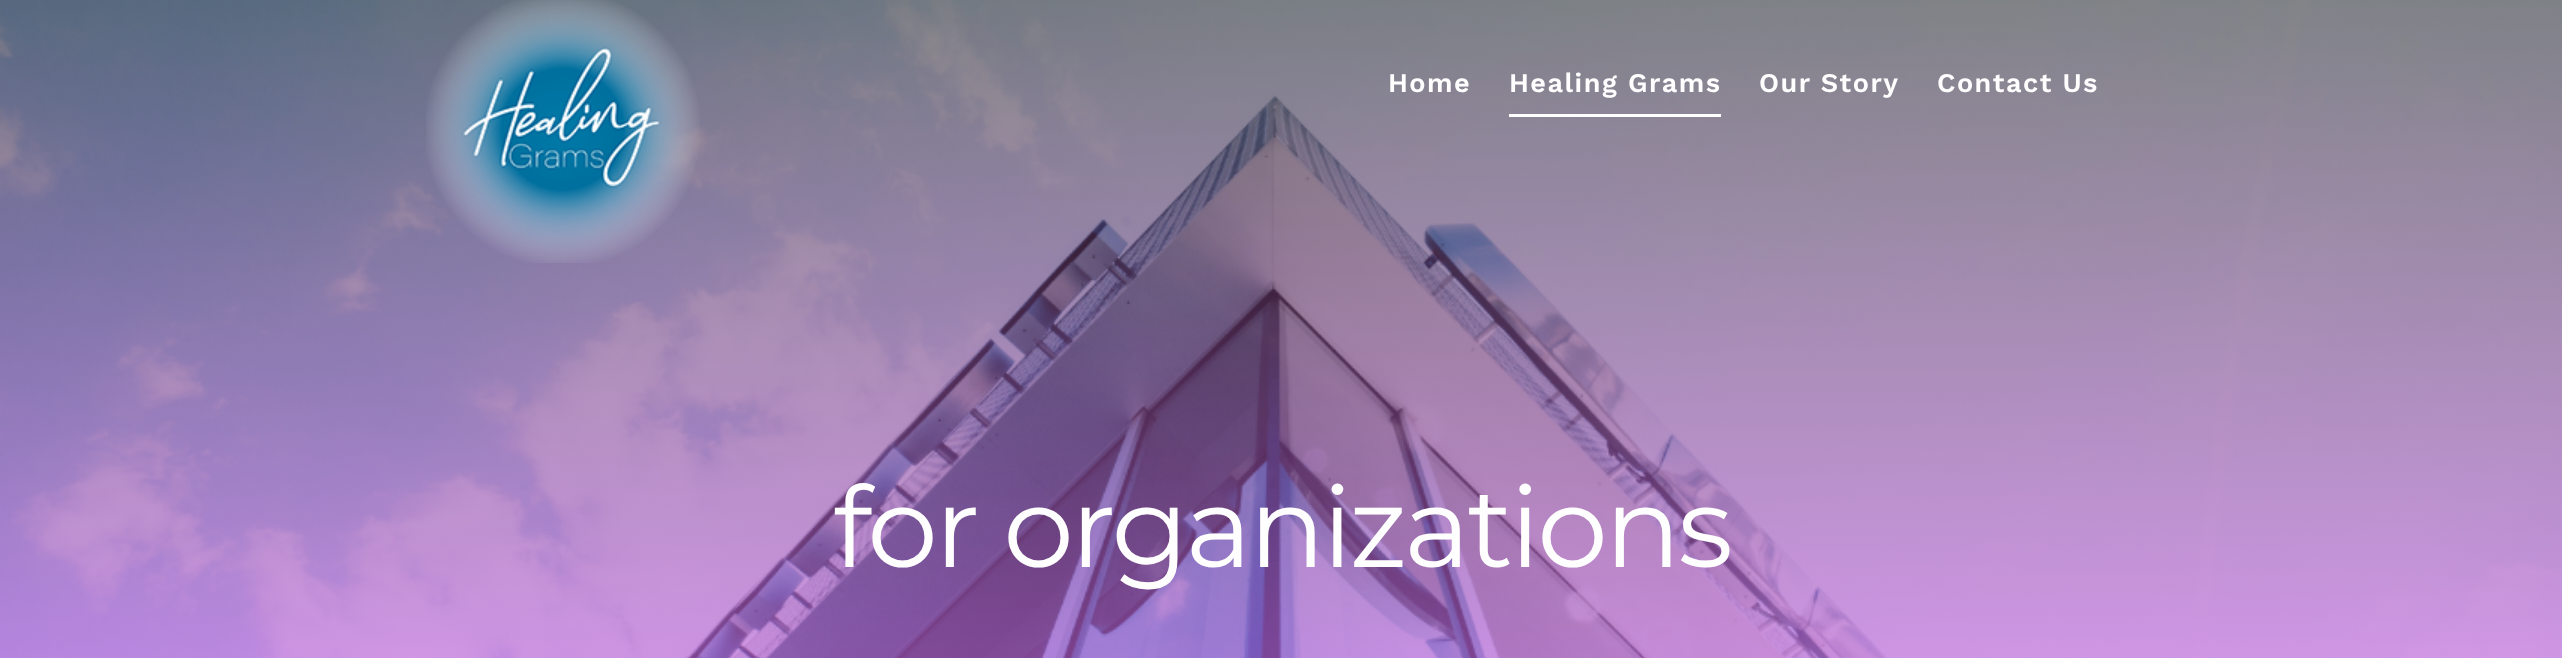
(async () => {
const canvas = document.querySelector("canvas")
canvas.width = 2562
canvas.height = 658
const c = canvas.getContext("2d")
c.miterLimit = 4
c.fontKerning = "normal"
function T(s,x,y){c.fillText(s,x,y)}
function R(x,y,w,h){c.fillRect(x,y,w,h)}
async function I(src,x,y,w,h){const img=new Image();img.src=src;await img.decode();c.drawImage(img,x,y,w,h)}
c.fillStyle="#fff"
R(0,0,2562,658)
await I("2.png",0,0,2562,658)
await I("1.png",426,0,274,263)
c.letterSpacing="1.5px"
c.font="600 27px Work Sans"
c.fillStyle="#fffeff"
T("Home",1388,92)
T("Healing Grams",1509,92)
c.fillStyle="#fff"
R(1509,114,212,3)
c.fillStyle="#fffeff"
T("Our Story",1759,92)
T("Contact Us",1937,92)
c.letterSpacing="-3px"
c.font="112.5px Montserrat"
T("for organizations",833,567)
})()
